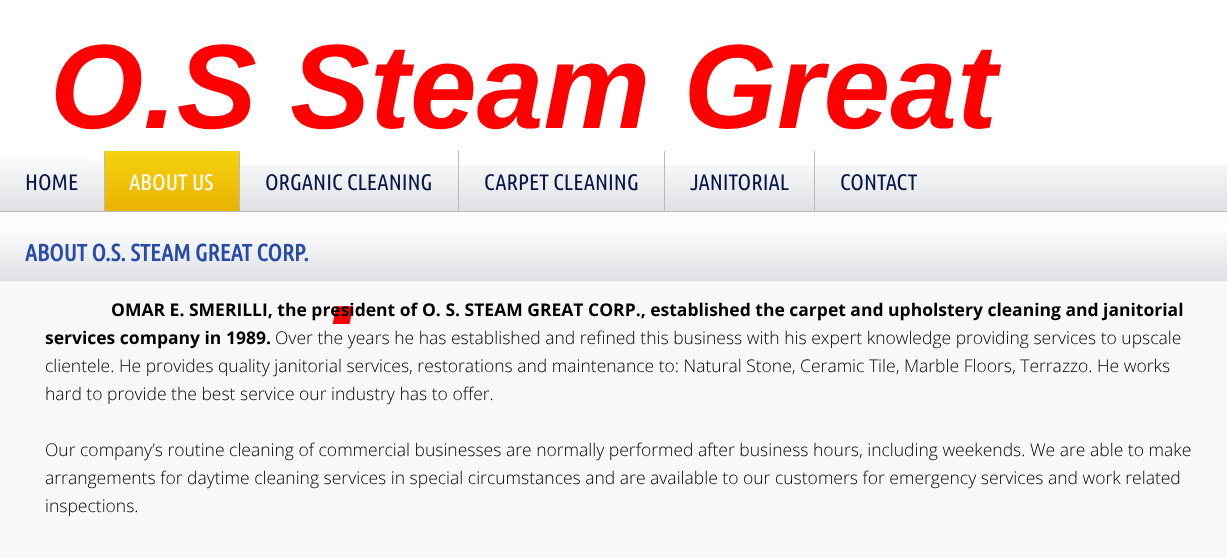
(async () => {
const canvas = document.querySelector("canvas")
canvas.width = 1227
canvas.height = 558
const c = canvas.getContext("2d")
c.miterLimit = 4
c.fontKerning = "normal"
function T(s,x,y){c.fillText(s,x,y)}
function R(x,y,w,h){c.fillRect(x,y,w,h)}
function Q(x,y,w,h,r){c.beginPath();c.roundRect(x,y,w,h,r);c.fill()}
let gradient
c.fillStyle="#fff"
R(0,0,1227,558)
c.fillStyle="#f9f7f7"
R(0,283,1227,275)
gradient = c.createLinearGradient(750,0,750,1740)
gradient.addColorStop(0,"#fff")
gradient.addColorStop(1,"#e5e5e5")
c.fillStyle = gradient
R(0,167,1227,58)
gradient = c.createLinearGradient(628,150,628,211)
gradient.addColorStop(0,"#fff")
gradient.addColorStop(1,"#dee0e4")
c.fillStyle = gradient
R(0,158,1227,53)
c.fillStyle="#fff"
Q(50,-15,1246,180,69)
c.font="italic bold 120px Liberation Sans"
c.fillStyle="#f00"
T("O.S Steam Great",50,128)
T(".",330,324)
c.fillStyle="#b9babe"
R(0,211,1227,1)
c.font="22.5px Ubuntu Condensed"
c.fillStyle="#091647"
T("HOME",25,190)
gradient = c.createLinearGradient(172,151,172,211)
gradient.addColorStop(0,"#f3d30e")
gradient.addColorStop(1,"#ebb203")
c.fillStyle = gradient
R(105,151,134,60)
c.fillStyle="#b9babe"
R(104,151,1,60)
c.fillStyle="#fff"
T("ABOUT US",129,190)
c.fillStyle="#b9babe"
R(239,151,1,60)
c.fillStyle="#091647"
T("ORGANIC CLEANING",265,190)
c.fillStyle="#b9babe"
R(458,151,1,60)
c.fillStyle="#091647"
T("CARPET CLEANING",484,190)
c.fillStyle="#b9babe"
R(664,151,1,60)
c.fillStyle="#091647"
T("JANITORIAL",690,190)
c.fillStyle="#b9babe"
R(814,151,1,60)
c.fillStyle="#091647"
T("CONTACT",840,190)
gradient = c.createLinearGradient(627,225,627,281)
gradient.addColorStop(0,"#fff")
gradient.addColorStop(1,"#dee0e4")
c.fillStyle = gradient
R(0,229,1227,52)
c.fillStyle="#ebeced"
R(0,281,1227,1)
c.font="bold 23.75px Ubuntu Condensed"
c.fillStyle="#284ba9"
T("ABOUT O.S. STEAM GREAT CORP.",25,261)
c.font="bold 17.5px Open Sans"
c.fillStyle="#000"
T("OMAR E. SMERILLI, the president of O. S. STEAM GREAT CORP., established the carpet and upholstery cleaning and janitorial",111,316)
T("services company in 1989.",45,344)
c.font="300 17.5px Open Sans"
T("Over the years he has established and refined this business with his expert knowledge providing services to upscale",275,344)
T("clientele. He provides quality janitorial services, restorations and maintenance to: Natural Stone, Ceramic Tile, Marble Floors, Terrazzo. He works",45,372)
T("hard to provide the best service our industry has to offer.",45,400)
T("Our company’s routine cleaning of commercial businesses are normally performed after business hours, including weekends. We are able to make",45,456)
T("arrangements for daytime cleaning services in special circumstances and are available to our customers for emergency services and work related",45,484)
T("inspections.",45,512)
})()
